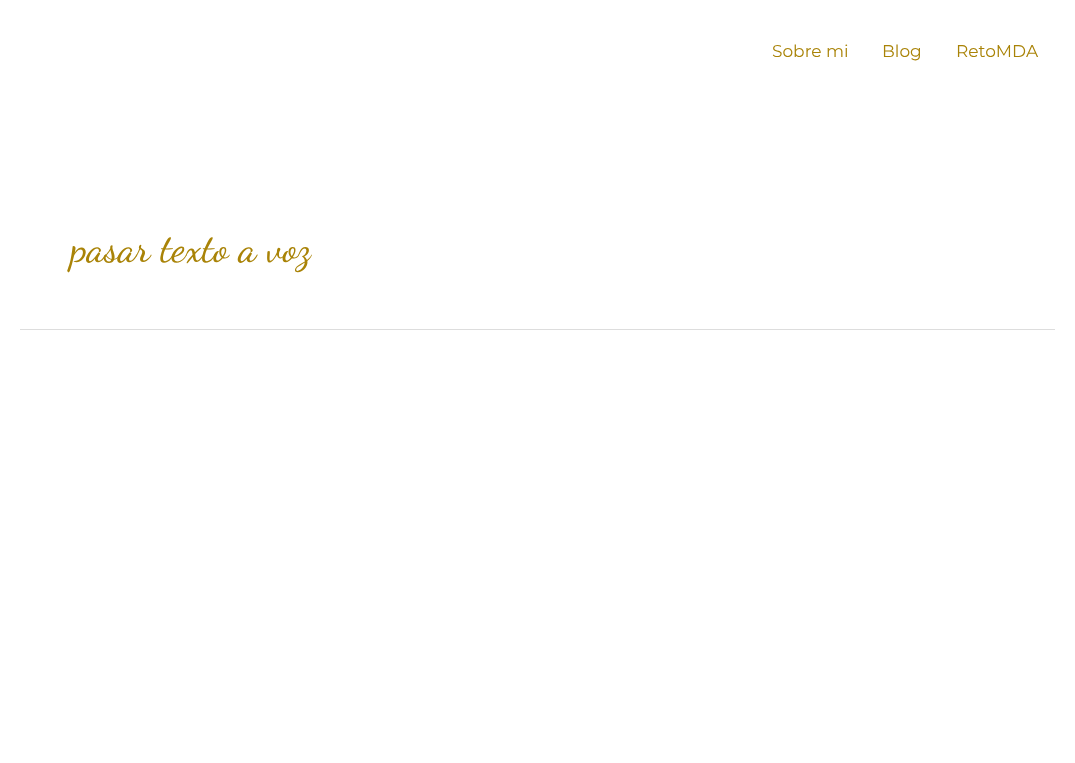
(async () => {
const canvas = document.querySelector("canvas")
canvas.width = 1075
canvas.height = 763
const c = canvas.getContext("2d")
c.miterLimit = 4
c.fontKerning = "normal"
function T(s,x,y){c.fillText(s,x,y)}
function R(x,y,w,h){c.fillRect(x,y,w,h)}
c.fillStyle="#fff"
R(0,0,1075,763)
c.font="17px Montserrat"
c.fillStyle="#a98307"
T("Sobre mi",772,57)
T("Blog",882,57)
T("RetoMDA",956,57)
c.fillStyle="#ddd"
R(20,329,1035,1)
c.font="500 40px Dancing Script"
c.fillStyle="#a98307"
T("pasar texto a voz",71,261)
})()
